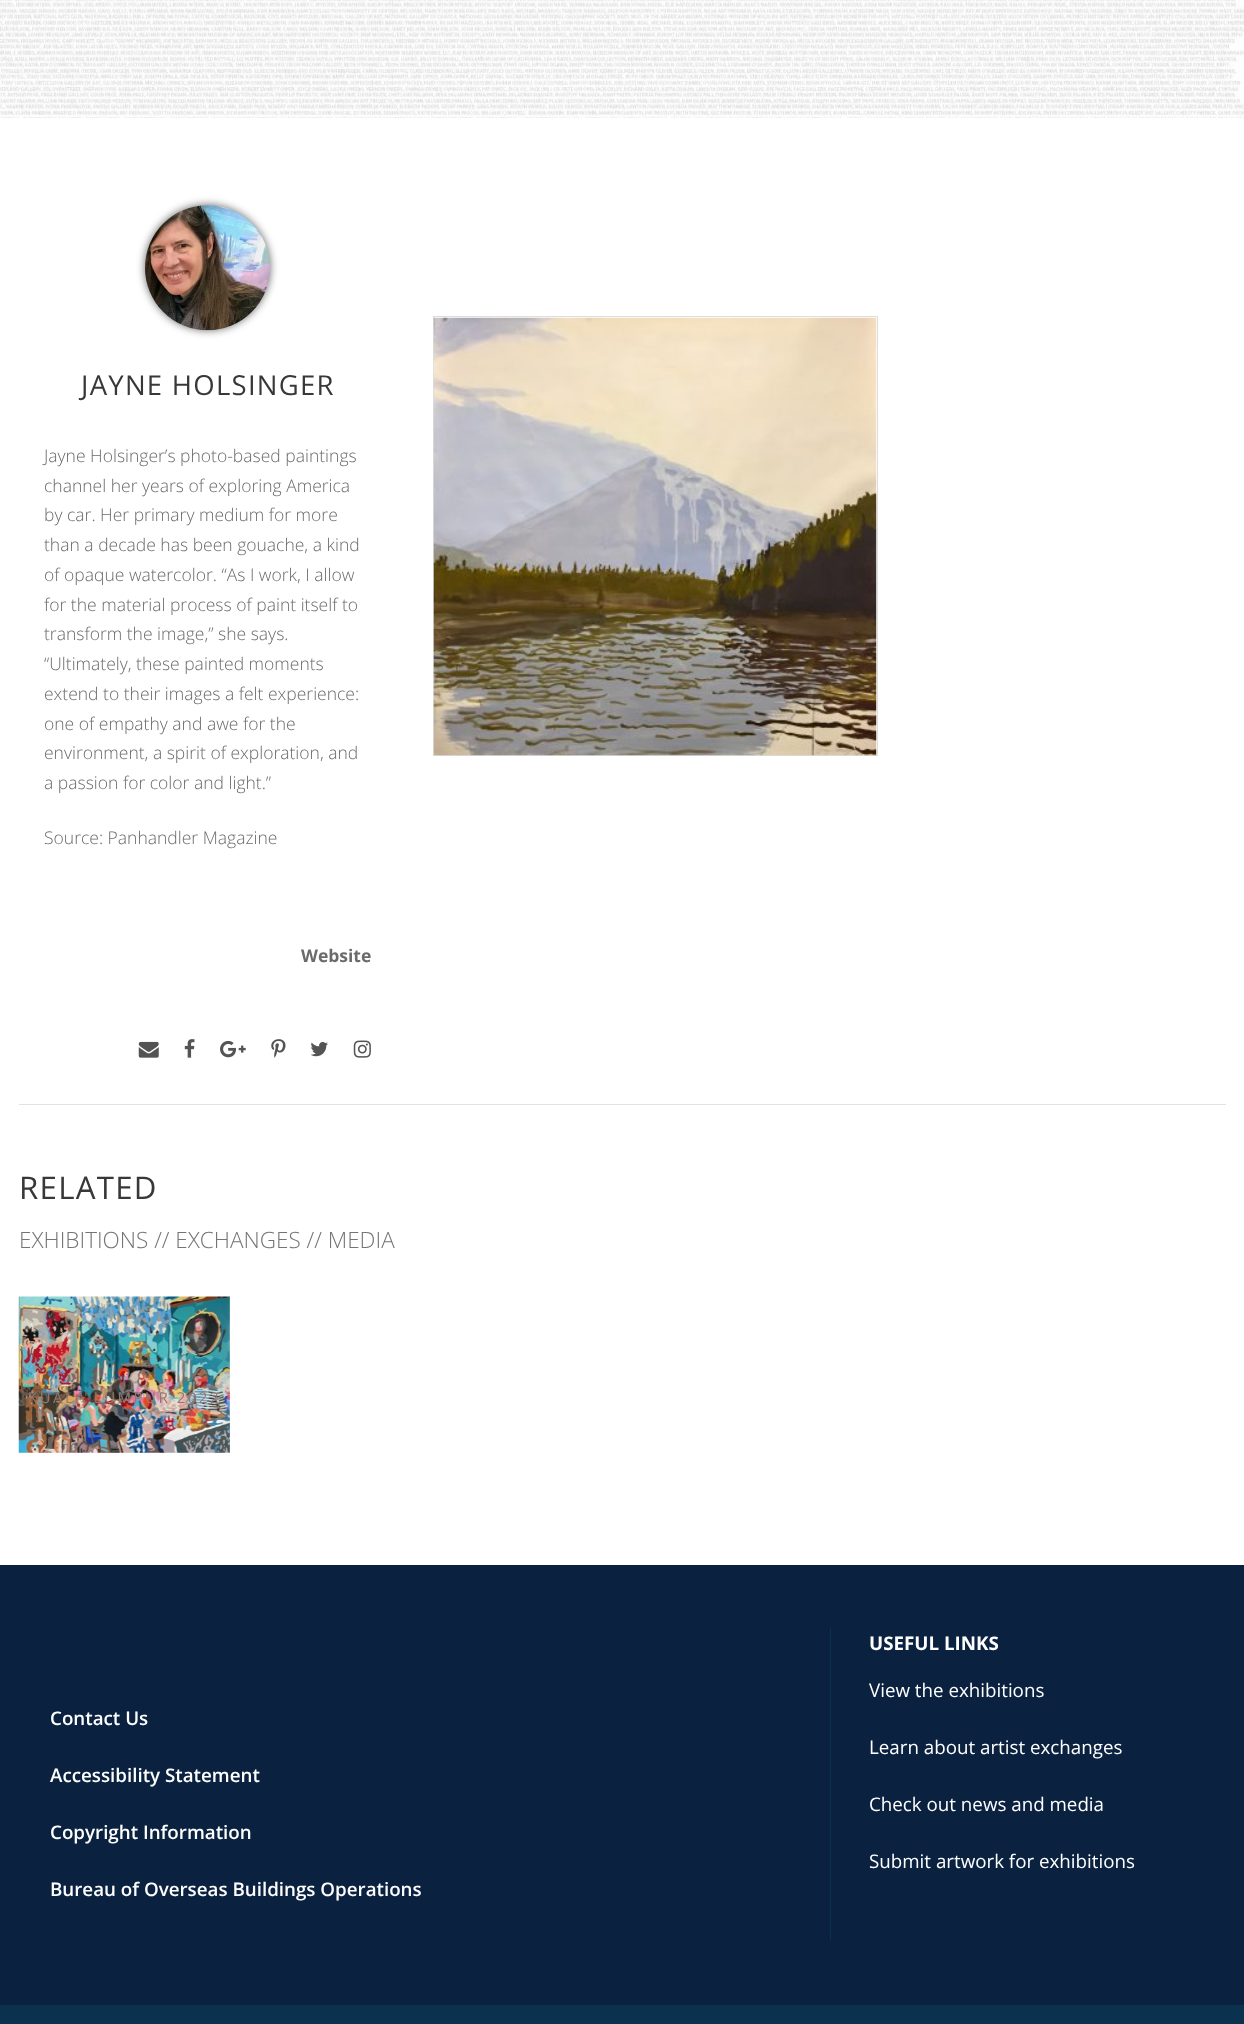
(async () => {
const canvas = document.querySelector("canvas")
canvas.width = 1244
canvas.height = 2024
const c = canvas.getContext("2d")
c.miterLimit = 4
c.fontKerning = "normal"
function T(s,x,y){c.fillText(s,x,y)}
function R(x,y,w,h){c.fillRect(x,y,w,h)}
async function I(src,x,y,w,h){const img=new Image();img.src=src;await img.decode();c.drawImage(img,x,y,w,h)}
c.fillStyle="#fff"
R(0,0,1244,2024)
await I("1.png",0,0,1244,118)
c.fillStyle="#00000099"
c.filter="blur(4.5px)"
c.beginPath()
c.roundRect(145,205,125,125,62.5)
c.fill()
c.filter="none"
await I("2.png",145,205,125,126)
c.letterSpacing="1.25px"
c.font="27.5px Open Sans"
c.fillStyle="#383838"
T("JAYNE HOLSINGER",81,395)
c.letterSpacing="0px"
c.font="300 17.5px Open Sans"
c.fillStyle="#6b6b6b"
T("Jayne Holsinger’s photo-based paintings",44,462)
T("channel her years of exploring America",44,492)
T("by car. Her primary medium for more",44,521)
T("than a decade has been gouache, a kind",44,551)
T("of opaque watercolor. “As I work, I allow",44,581)
T("for the material process of paint itself to",44,611)
T("transform the image,” she says.",44,640)
T("“Ultimately, these painted moments",44,670)
T("extend to their images a felt experience:",44,700)
T("one of empathy and awe for the",44,730)
T("environment, a spirit of exploration, and",44,759)
T("a passion for color and light.”",44,789)
T("Source: Panhandler Magazine",44,844)
c.font="bold 17.5px Open Sans"
T("Website",301,962)
await I("3.png",138,1041,21,17)
await I("4.png",184,1039,11,19)
await I("5.png",220,1040,26,18)
await I("6.png",271,1039,15,19)
await I("7.png",310,1042,18,15)
await I("8.png",353,1040,18,18)
c.strokeStyle="#ddd"
c.strokeRect(433.5,316.5,444,439)
await I("9.png",433,317,444,439)
c.fillStyle="#e2e2e2"
R(19,1104,1207,1)
c.letterSpacing="1.25px"
c.font="31.25px Open Sans"
c.fillStyle="#383838"
T("RELATED",19,1199)
c.letterSpacing="0px"
c.font="300 22.5px Open Sans"
c.fillStyle="#747474"
T("EXHIBITIONS // EXCHANGES // MEDIA",19,1248)
await I("10.png",18,1296,212,157)
c.letterSpacing="2.5px"
c.font="15px Open Sans"
c.fillStyle="#927972"
T("KUALA LUMPUR 2022",28,1403)
c.fillStyle="#0a2240"
R(0,1565,1244,440)
c.letterSpacing="0px"
c.font="600 18.75px Open Sans"
c.fillStyle="#fff"
T("Contact Us",50,1725)
T("Accessibility Statement",50,1782)
T("Copyright Information",50,1839)
T("Bureau of Overseas Buildings Operations",50,1896)
c.fillStyle="#0a314d"
R(830,1628,1,313)
c.font="bold 18.75px Open Sans"
c.fillStyle="#fff"
T("USEFUL LINKS",869,1650)
c.font="18.75px Open Sans"
T("View the exhibitions",869,1697)
T("Learn about artist exchanges",869,1754)
T("Check out news and media",869,1811)
T("Submit artwork for exhibitions",869,1868)
c.fillStyle="#0a314d"
R(0,2005,1244,19)
})()
